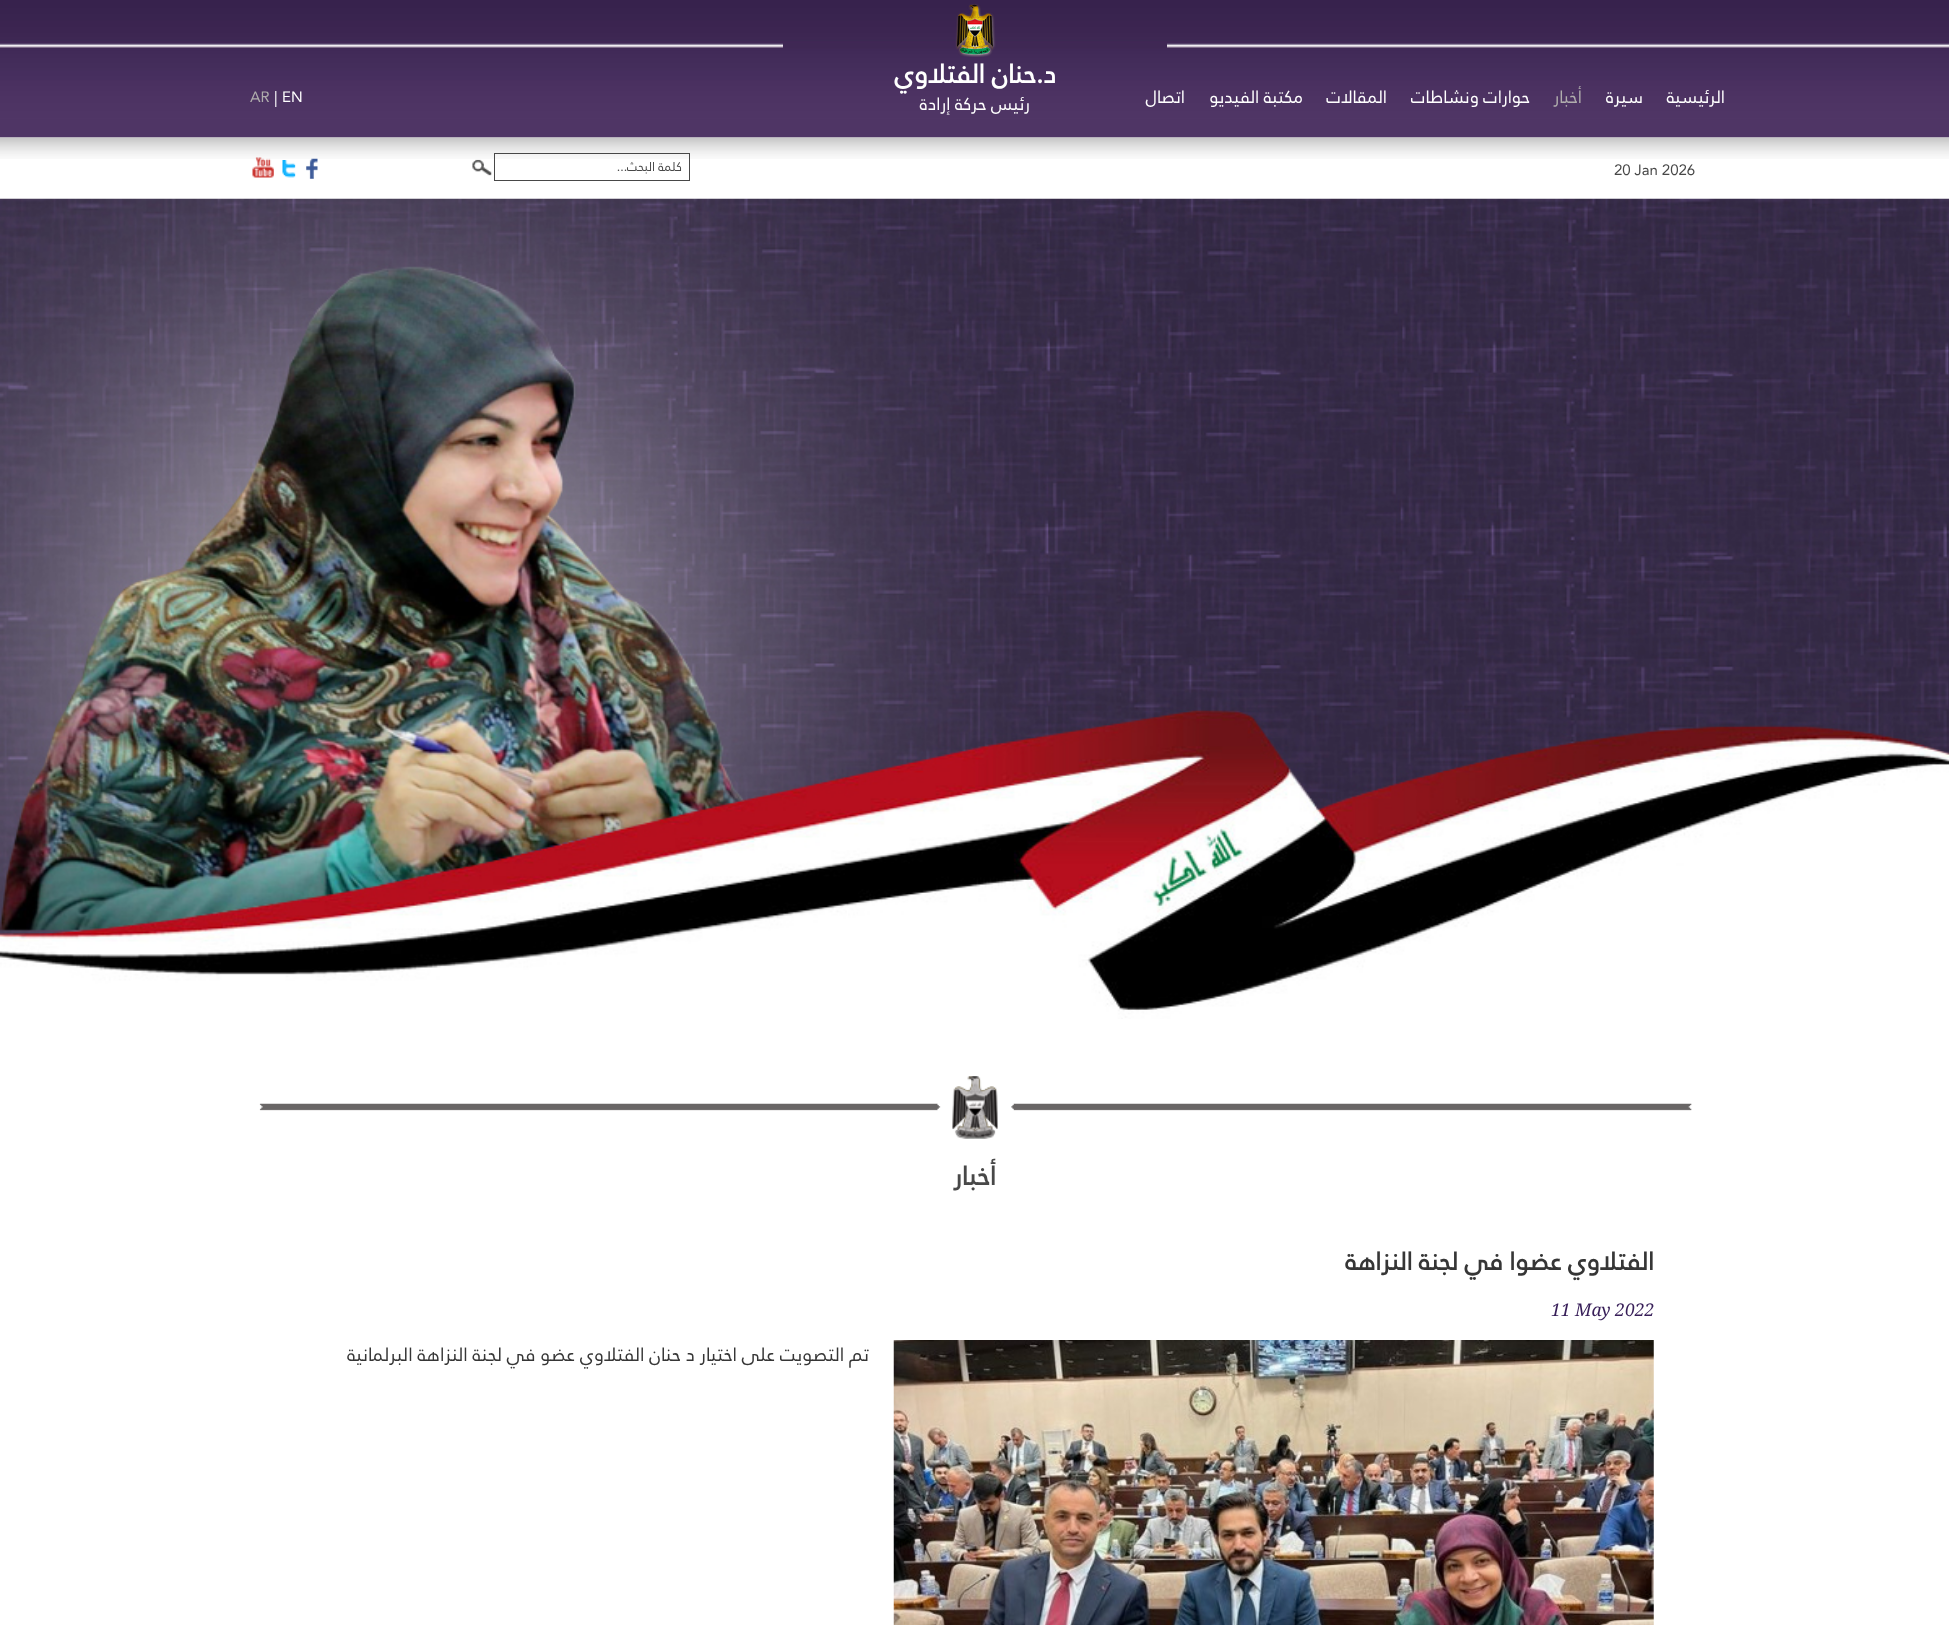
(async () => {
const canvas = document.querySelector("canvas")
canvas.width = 1949
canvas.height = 1625
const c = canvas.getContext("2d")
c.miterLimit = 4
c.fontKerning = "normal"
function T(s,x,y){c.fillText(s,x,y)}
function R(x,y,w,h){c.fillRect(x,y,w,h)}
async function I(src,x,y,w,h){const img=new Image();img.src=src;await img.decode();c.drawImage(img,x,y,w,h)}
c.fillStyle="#fff"
R(0,0,1949,1625)
await I("1.png",0,0,1949,138)
c.fillStyle="#3f2854"
R(783,43,384,5)
await I("2.png",955,4,41,53)
c.direction="rtl"
c.font="17.5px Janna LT"
c.fillStyle="#fff"
T("الرئيسية",1725,103)
T("سيرة",1643,103)
c.fillStyle="#b0adad"
T("أخبار",1582,103)
c.fillStyle="#fff"
T("حوارات ونشاطات",1530,103)
T("المقالات",1387,103)
T("مكتبة الفيديو",1303,103)
T("اتصال",1185,103)
c.font="bold 26.25px Janna LT"
T("د.حنان الفتلاوي",1056,83)
c.font="17.5px Janna LT"
T("رئيس حركة إرادة",1030,110)
c.direction="ltr"
c.font="15px Janna LT"
T("EN",282,102)
c.font="16px Janna LT"
T("|",274,103)
c.font="15px Janna LT"
c.fillStyle="#b0adad"
T("AR",250,102)
await I("3.png",0,137,1949,22)
c.fillStyle="#484848"
T("20 Jan 2026",1614,175)
c.strokeStyle="#484848"
c.strokeRect(494.5,153.5,195,27)
c.direction="rtl"
c.font="12.5px Janna LT"
T("كلمة البحث...",682,171)
await I("4.png",472,159,20,17)
await I("5.png",306,158,12,21)
await I("6.png",282,160,14,18)
await I("7.png",252,157,22,21)
await I("8.png",0,198,1949,821)
await I("9.png",259,1076,1433,63)
c.font="bold 26.25px Janna LT"
T("أخبار",996,1185)
c.font="bold 25px Janna LT"
c.fillStyle="#363636"
T("الفتلاوي عضوا في لجنة النزاهة",1654,1270)
c.direction="ltr"
c.font="italic 17.5px Noto Serif"
c.fillStyle="#371e58"
T("11 May 2022",1551,1316)
await I("10.png",893,1340,761,285)
c.direction="rtl"
c.font="18.75px Janna LT"
c.fillStyle="#363636"
T("تم التصويت على اختيار د حنان الفتلاوي عضو في لجنة النزاهة البرلمانية",869,1361)
})()
